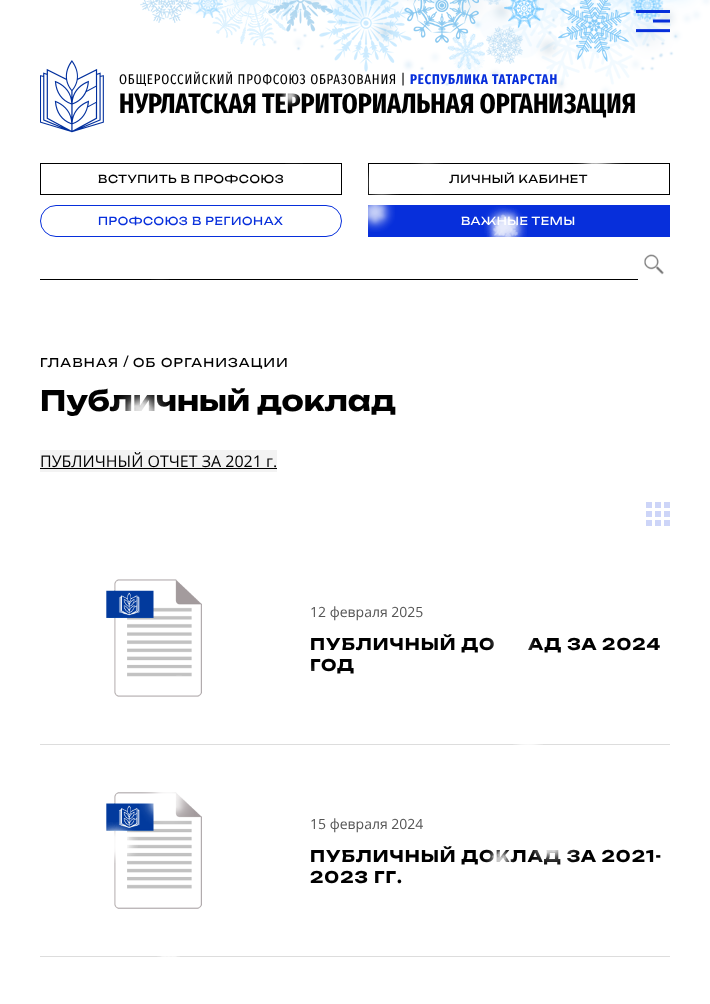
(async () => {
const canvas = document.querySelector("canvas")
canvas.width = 710
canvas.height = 1004
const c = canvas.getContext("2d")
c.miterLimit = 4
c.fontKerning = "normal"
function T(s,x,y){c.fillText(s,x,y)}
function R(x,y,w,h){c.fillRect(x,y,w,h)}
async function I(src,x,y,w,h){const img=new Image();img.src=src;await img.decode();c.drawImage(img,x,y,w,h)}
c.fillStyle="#fff"
R(0,0,710,1004)
await I("1.png",140,0,570,96)
await I("2.png",636,10,34,23)
await I("3.png",40,60,64,73)
c.letterSpacing="0.8px"
c.font="14px Fira Sans Extra Condensed"
c.fillStyle="#000"
T("ОБЩЕРОССИЙСКИЙ ПРОФСОЮЗ ОБРАЗОВАНИЯ |",119,84)
c.font="bold 14px Fira Sans Extra Condensed"
c.fillStyle="#072fdb"
T("РЕСПУБЛИКА ТАТАРСТАН",410,84)
c.letterSpacing="0px"
c.font="bold 28px Fira Sans Extra Condensed"
c.fillStyle="#000"
T("НУРЛАТСКАЯ ТЕРРИТОРИАЛЬНАЯ ОРГАНИЗАЦИЯ",119,113)
c.strokeStyle="#000"
c.strokeRect(40.5,163.5,301,31)
c.letterSpacing="0.6px"
c.font="11px Unbounded"
T("ВСТУПИТЬ В ПРОФСОЮЗ",98,183)
c.strokeRect(368.5,163.5,301,31)
T("ЛИЧНЫЙ КАБИНЕТ",449,183)
c.beginPath()
c.roundRect(40.5,205.5,301,31,15.5)
c.strokeStyle="#072fdb"
c.stroke()
c.fillStyle="#072fdb"
T("ПРОФСОЮЗ В РЕГИОНАХ",98,225)
R(368,205,302,32)
c.fillStyle="#fff"
T("ВАЖНЫЕ ТЕМЫ",461,225)
await I("4.png",644,254,20,21)
c.fillStyle="#000"
R(40,279,598,1)
await I("5.png",279,93,21,14)
await I("6.png",285,163,18,1)
await I("7.png",368,164,31,31)
await I("8.png",411,163,32,32)
await I("9.png",573,163,52,13)
await I("10.png",368,193,27,39)
await I("11.png",484,206,43,31)
await I("6.png",151,279,18,1)
c.letterSpacing="1.25px"
c.font="12px Unbounded"
T("ГЛАВНАЯ",40,367)
c.letterSpacing="0px"
c.font="16px Open Sans"
T("/",123,367)
c.letterSpacing="1.25px"
c.font="12px Unbounded"
T("ОБ ОРГАНИЗАЦИИ",133,367)
c.letterSpacing="0px"
c.font="bold 28px Unbounded"
T("Публичный доклад",40,411)
c.fillStyle="#f3f3f3"
R(40,450,237,22)
c.font="16px Open Sans"
c.fillStyle="#000"
T("ПУБЛИЧНЫЙ ОТЧЕТ ЗА 2021 г.",40,467)
R(40,468,237,1)
await I("12.png",646,502,24,24)
c.fillStyle="#ddd"
R(40,744,630,1)
await I("13.png",106,579,96,118)
c.font="14px Open Sans"
c.fillStyle="#555"
T("12 февраля 2025",310,617)
c.letterSpacing="1px"
c.font="bold 16px Unbounded"
c.fillStyle="#000"
T("ПУБЛИЧНЫЙ ДО",310,650)
T("АД ЗА 2024",528,650)
T("ГОД",310,671)
c.fillStyle="#ddd"
R(40,956,630,1)
await I("14.png",106,792,96,117)
c.letterSpacing="0px"
c.font="14px Open Sans"
c.fillStyle="#555"
T("15 февраля 2024",310,829)
c.letterSpacing="1px"
c.font="bold 16px Unbounded"
c.fillStyle="#000"
T("ПУБЛИЧНЫЙ ДОКЛАД ЗА 2021-",310,862)
T("2023 ГГ.",310,883)
await I("15.png",112,395,60,16)
await I("16.png",122,467,18,2)
await I("17.png",487,638,48,13)
await I("18.png",311,665,4,6)
await I("19.png",176,675,6,1)
await I("20.png",513,744,30,1)
await I("21.png",139,792,55,32)
await I("22.png",106,822,32,41)
await I("23.png",484,850,31,13)
await I("24.png",530,849,50,16)
await I("25.png",157,956,23,1)
})()
